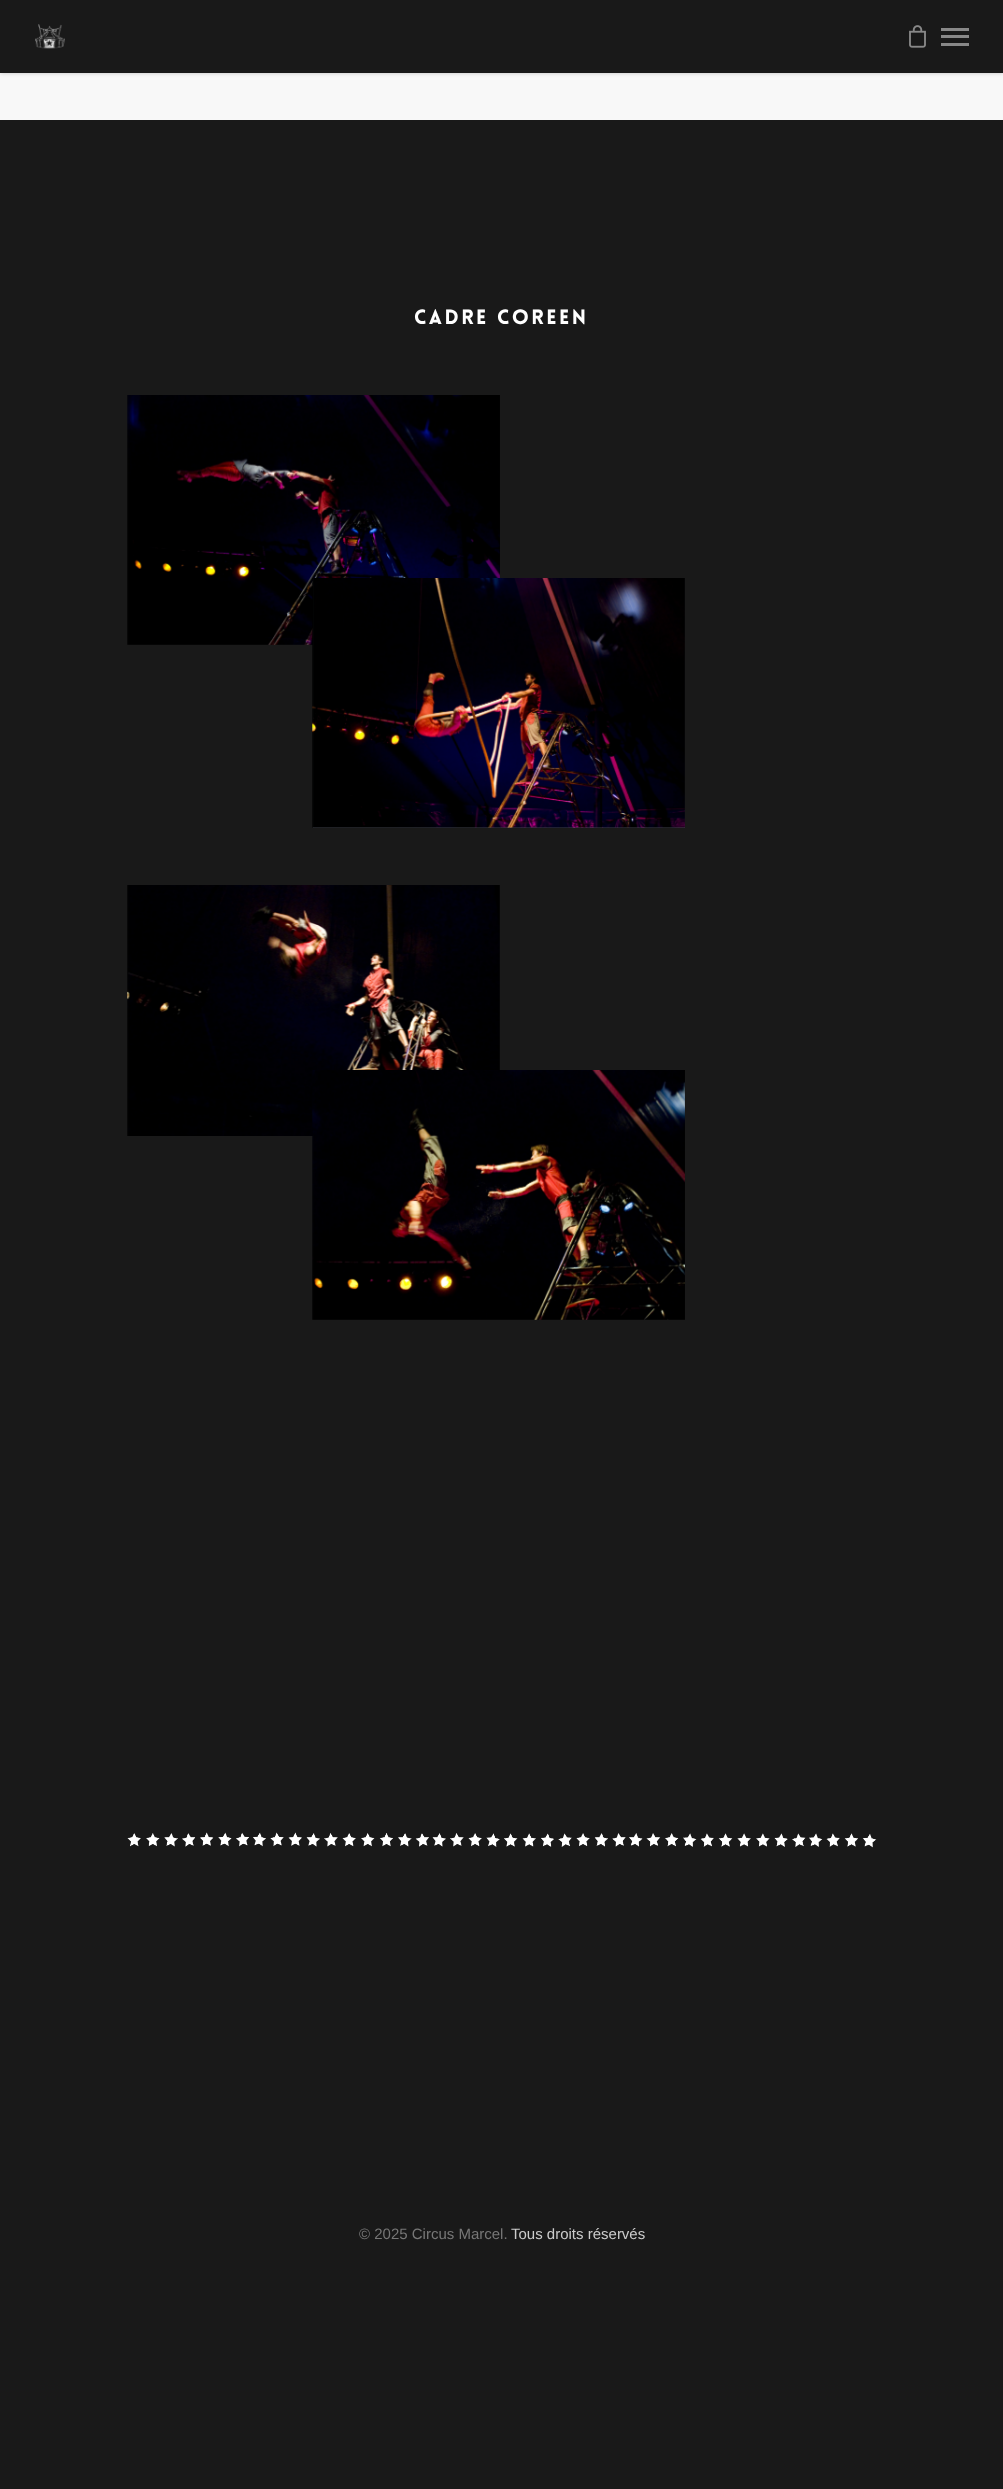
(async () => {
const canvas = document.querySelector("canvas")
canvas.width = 1003
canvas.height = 2489
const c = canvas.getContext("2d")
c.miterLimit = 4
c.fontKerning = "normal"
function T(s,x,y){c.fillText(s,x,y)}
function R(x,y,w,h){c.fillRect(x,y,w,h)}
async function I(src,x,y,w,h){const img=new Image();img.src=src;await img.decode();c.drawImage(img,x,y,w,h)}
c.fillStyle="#191919"
R(0,0,1003,2489)
c.fillStyle="#f8f8f8"
R(0,73,1003,47)
c.fillStyle="#00000038"
c.filter="blur(2px)"
c.beginPath()
c.rect(0,0,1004,73)
c.fill()
c.filter="none"
c.fillStyle="#191919"
R(0,0,1003,73)
await I("1.png",35,24,30,25)
await I("2.png",909,25,17,23)
c.fillStyle="#888"
R(941,28,28,3)
R(941,43,28,3)
R(941,35,28,3)
c.letterSpacing="2.5px"
c.font="900 20.25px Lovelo"
c.fillStyle="#fff"
T("CADRE COREEN",414,324)
await I("3.png",127,395,373,250)
c.fillStyle="#3f424a"
R(313,578,372,250)
await I("4.png",312,578,373,250)
await I("5.png",127,885,373,251)
await I("6.png",312,1070,373,250)
await I("7.png",127,1832,750,16)
c.letterSpacing="0px"
c.font="15px Liberation Sans"
c.fillStyle="#777"
T("© 2025 Circus Marcel.",359,2239)
c.fillStyle="#ccc"
T("Tous droits réservés",511,2239)
})()
